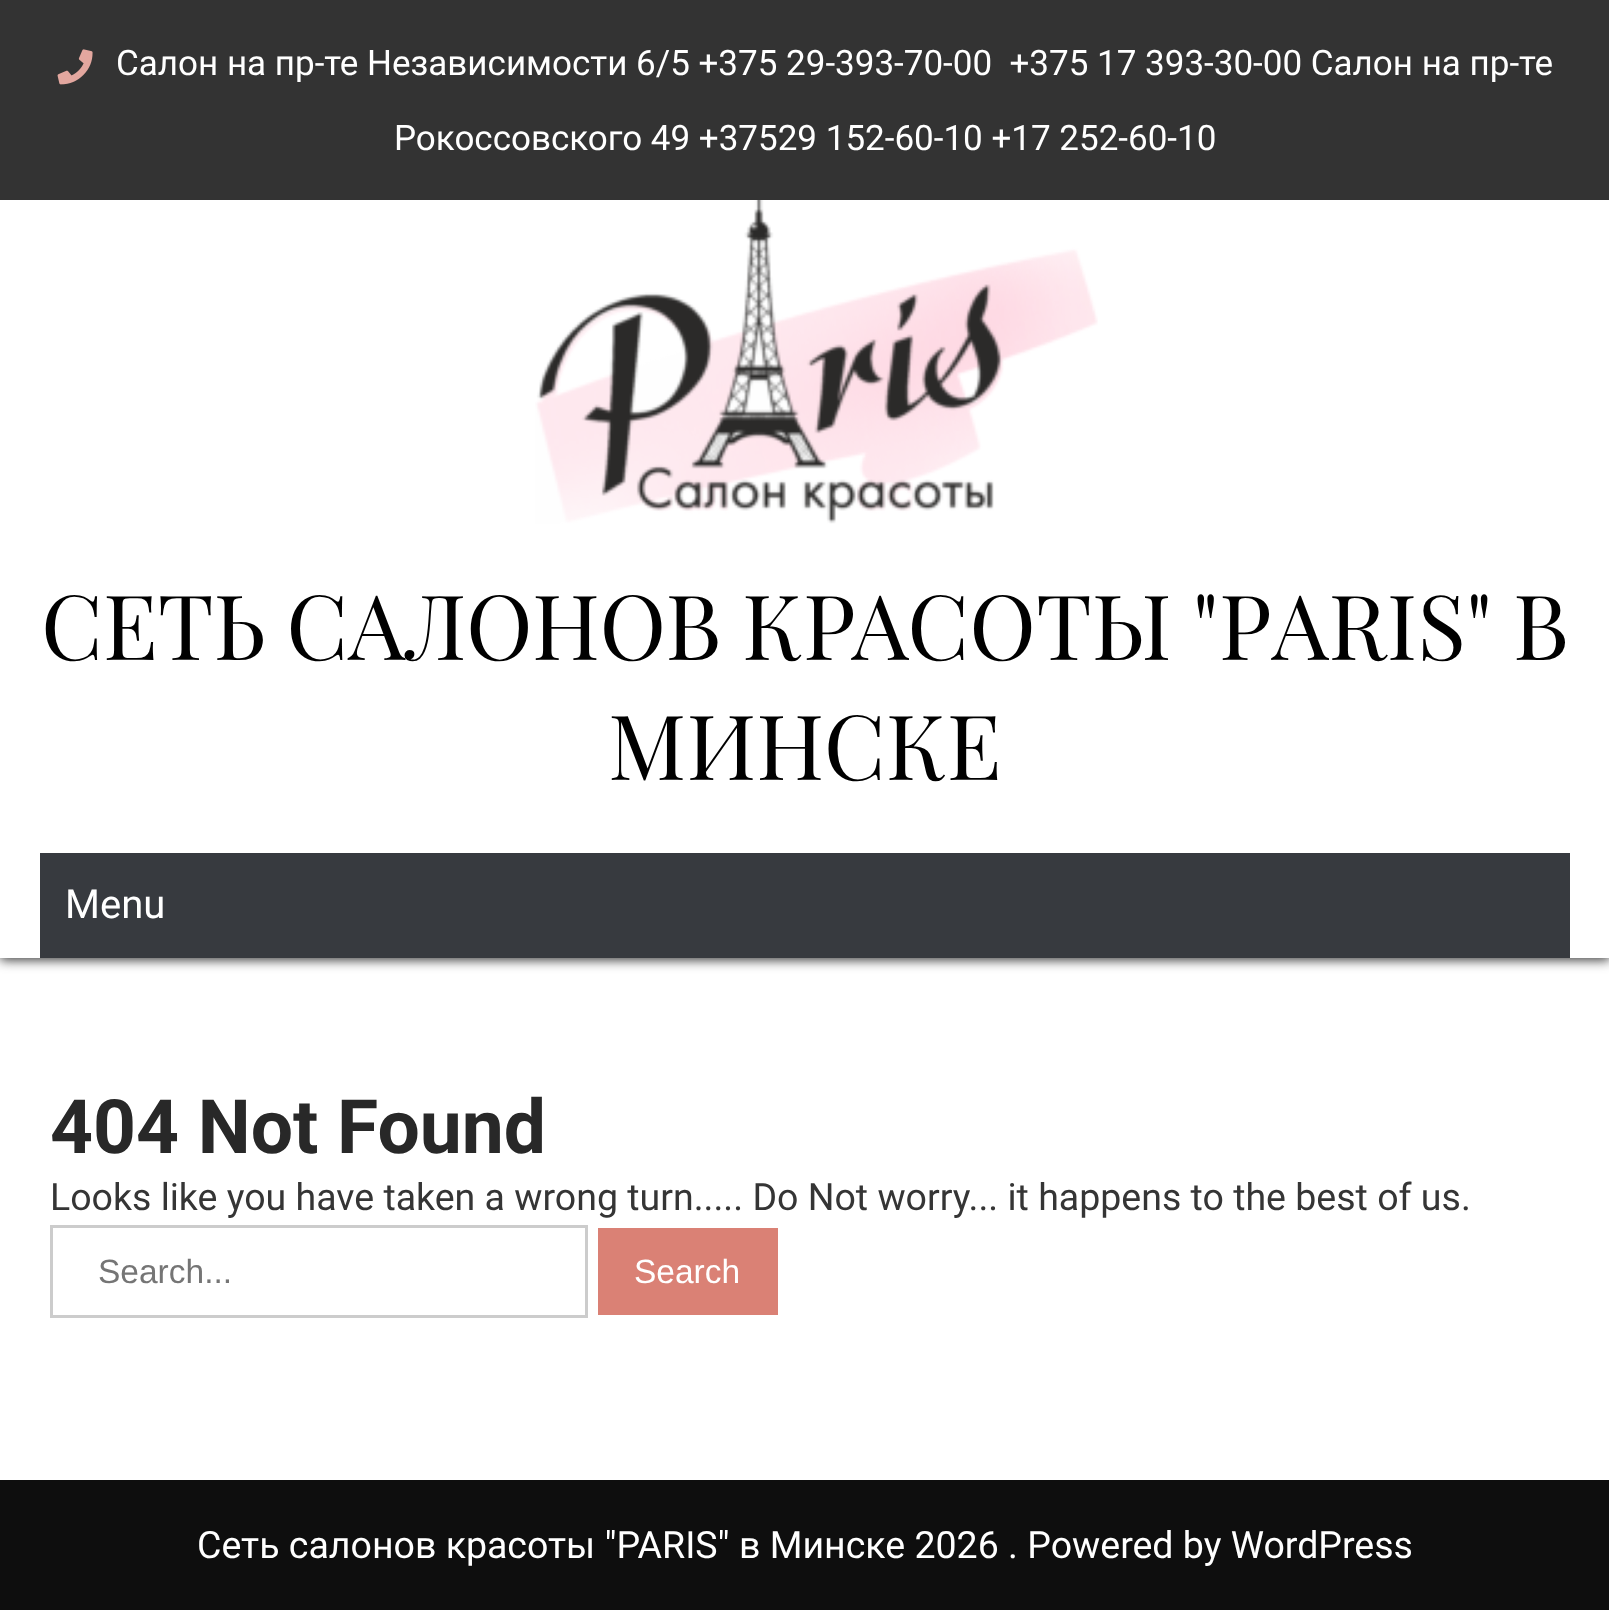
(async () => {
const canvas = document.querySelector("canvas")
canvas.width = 1609
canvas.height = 1622
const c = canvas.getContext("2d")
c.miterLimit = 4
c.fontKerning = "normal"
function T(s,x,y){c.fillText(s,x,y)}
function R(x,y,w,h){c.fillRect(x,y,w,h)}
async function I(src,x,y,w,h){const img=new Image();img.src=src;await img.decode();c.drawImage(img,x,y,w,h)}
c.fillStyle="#fff"
R(0,0,1609,1622)
c.fillStyle="#353535"
c.filter="blur(6px)"
c.beginPath()
c.rect(0,203,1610,757)
c.fill()
c.filter="none"
c.fillStyle="#333"
R(0,0,1609,200)
await I("1.png",57,49,36,36)
c.font="35px Roboto"
c.fillStyle="#fff"
T("Салон на пр-те Независимости 6/5 +375 29-393-70-00  +375 17 393-30-00 Салон на пр-те",116,75)
T("Рокоссовского 49 +37529 152-60-10 +17 252-60-10",394,150)
R(0,200,1609,758)
await I("2.png",535,200,563,324)
c.wordSpacing="-2px"
c.font="90px Playfair Display"
c.fillStyle="#000"
T("СЕТЬ САЛОНОВ КРАСОТЫ \"PARIS\" В",41,660)
c.wordSpacing="0px"
T("МИНСКЕ",608,780)
c.fillStyle="#373a3f"
R(40,853,1530,105)
c.font="40px Roboto"
c.fillStyle="#fff"
T("Menu",65,918)
c.font="bold 75px Roboto"
c.fillStyle="#282828"
T("404 Not Found",50,1153)
c.font="37.5px Roboto"
c.fillStyle="#353535"
T("Looks like you have taken a wrong turn..... Do Not worry... it happens to the best of us.",50,1210)
c.strokeStyle="#ccc"
c.lineWidth=3
c.strokeRect(51.5,1226.5,535,90)
c.font="33.5px Liberation Sans"
c.fillStyle="#757575"
T("Search...",98,1283)
c.fillStyle="#da8175"
R(598,1228,180,87)
c.fillStyle="#fff"
T("Search",634,1283)
c.fillStyle="#0e0e0e"
R(0,1480,1609,130)
c.font="37.5px Roboto"
c.fillStyle="#fff"
T("Сеть салонов красоты \"PARIS\" в Минске 2026 . Powered by WordPress",197,1558)
})()
